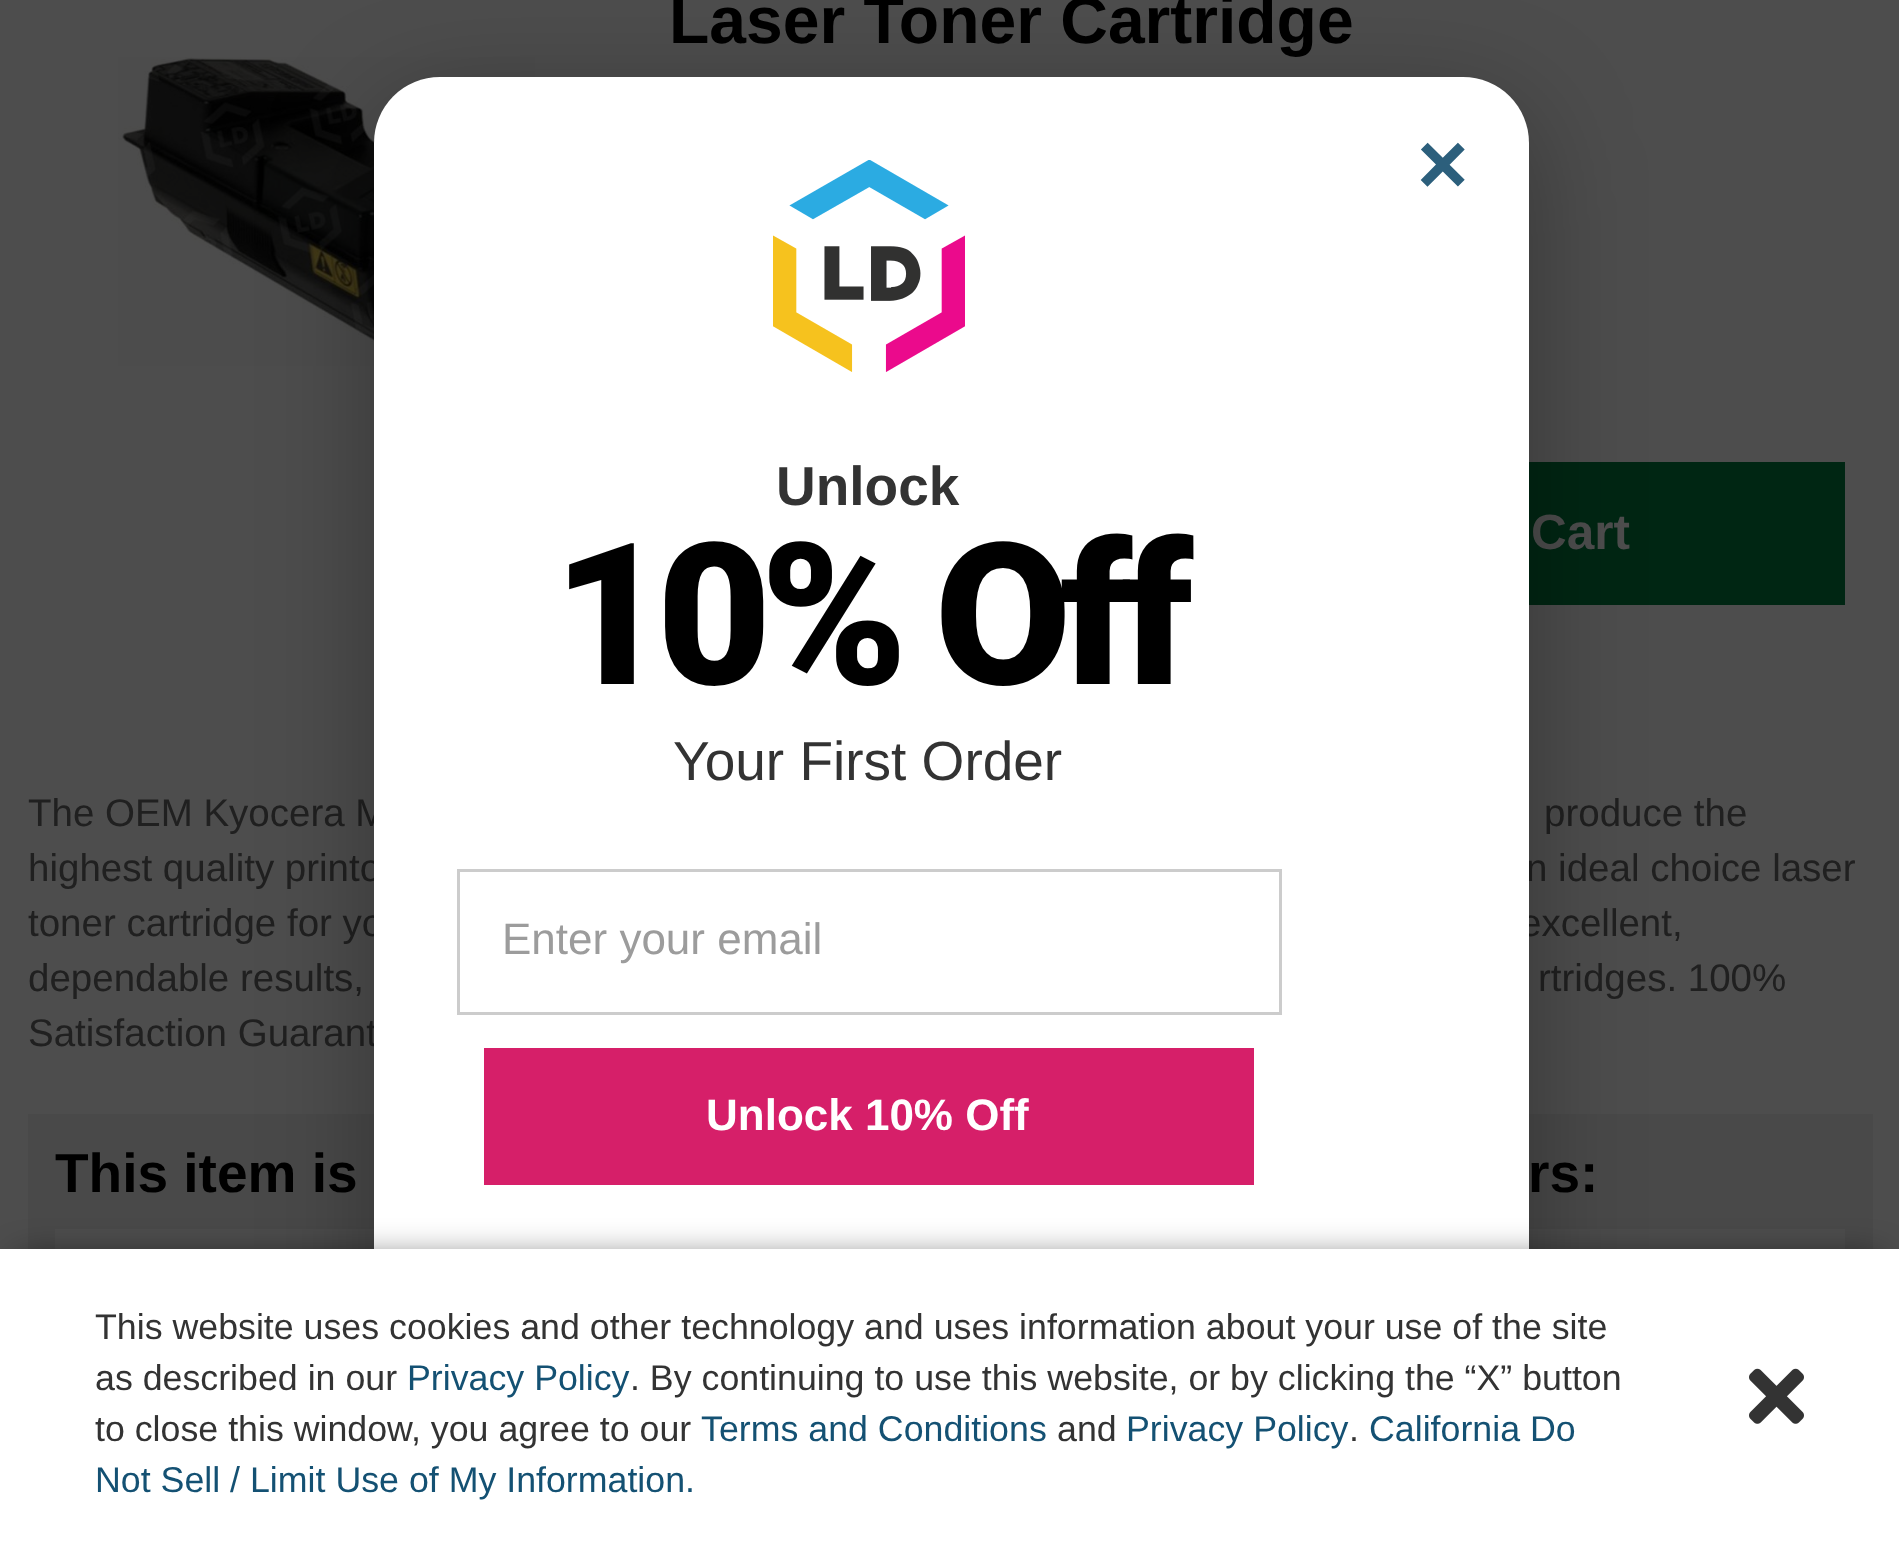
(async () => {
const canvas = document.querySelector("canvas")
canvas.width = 1899
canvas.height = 1562
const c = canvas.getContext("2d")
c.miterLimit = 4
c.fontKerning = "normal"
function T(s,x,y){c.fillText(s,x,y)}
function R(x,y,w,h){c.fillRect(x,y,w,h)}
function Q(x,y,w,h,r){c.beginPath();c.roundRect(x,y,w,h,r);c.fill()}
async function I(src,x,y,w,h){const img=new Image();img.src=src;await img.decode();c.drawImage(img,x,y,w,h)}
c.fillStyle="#4d4d4d"
R(0,0,1899,1562)
await I("1.png",118,57,417,309)
c.font="bold 66px Liberation Sans"
c.fillStyle="#000"
T("Laser Toner Cartridge",669,43)
c.fillStyle="#002613"
R(1529,462,316,143)
c.font="bold 49.5px Liberation Sans"
c.fillStyle="#4d4d4d"
T("Cart",1531,549)
c.font="38.5px Liberation Sans"
c.fillStyle="#202020"
T("The OEM Kyocera M",28,826)
T("produce the",1544,826)
T("highest quality printo",28,881)
T("n ideal choice laser",1526,881)
T("toner cartridge for yo",28,936)
T("excellent,",1520,936)
T("dependable results,",28,991)
T("rtridges. 100%",1538,991)
T("Satisfaction Guarant",28,1046)
c.fillStyle="#494949"
R(28,1114,1845,135)
c.font="bold 55px Liberation Sans"
c.fillStyle="#000"
T("This item is",55,1192)
T("rs:",1528,1192)
c.fillStyle="#4d4d4d"
R(55,1229,1790,20)
c.fillStyle="#0000004d"
c.filter="blur(55px)"
c.beginPath()
c.roundRect(374,105,1155,1408,66)
c.fill()
c.filter="none"
c.fillStyle="#fff"
Q(374,77,1155,1408,66)
c.fillStyle="#000000a3"
c.filter="blur(18px)"
c.beginPath()
c.rect(19,1260,1862,275)
c.fill()
c.filter="none"
c.fillStyle="#fff"
R(0,1249,1899,313)
c.font="35.75px Liberation Sans"
c.fillStyle="#333"
T("This website uses cookies and other technology and uses information about your use of the site",95,1339)
T("as described in our",95,1390)
c.fillStyle="#145173"
T("Privacy Policy",407,1390)
c.fillStyle="#333"
T(". By continuing to use this website, or by clicking the “X” button",630,1390)
T("to close this window, you agree to our",95,1441)
c.fillStyle="#145173"
T("Terms and Conditions",701,1441)
c.fillStyle="#333"
T("and",1057,1441)
c.fillStyle="#145173"
T("Privacy Policy",1126,1441)
c.fillStyle="#333"
T(".",1349,1441)
c.fillStyle="#145173"
T("California Do",1369,1441)
T("Not Sell / Limit Use of My Information.",95,1492)
await I("2.png",1749,1368,55,56)
c.font="bold 88px Liberation Sans"
c.fillStyle="#2c5f7c"
T("×",1417,194)
await I("3.png",773,160,192,212)
c.font="bold 55px Liberation Sans"
c.fillStyle="#333"
T("Unlock",776,505)
c.letterSpacing="-11px"
c.font="900 198px Roboto"
c.fillStyle="#000"
T("10% Off",553,684)
c.letterSpacing="0px"
c.font="55px Liberation Sans"
c.fillStyle="#333"
T("Your First Order",673,780)
c.strokeStyle="#ccc"
c.lineWidth=3
c.strokeRect(458.5,870.5,822,143)
c.font="44px Liberation Sans"
c.fillStyle="#9c9c9c"
T("Enter your email",502,954)
c.fillStyle="#d61f69"
R(484,1048,770,137)
c.font="bold 44px Liberation Sans"
c.fillStyle="#fff"
T("Unlock 10% Off",706,1130)
})()
